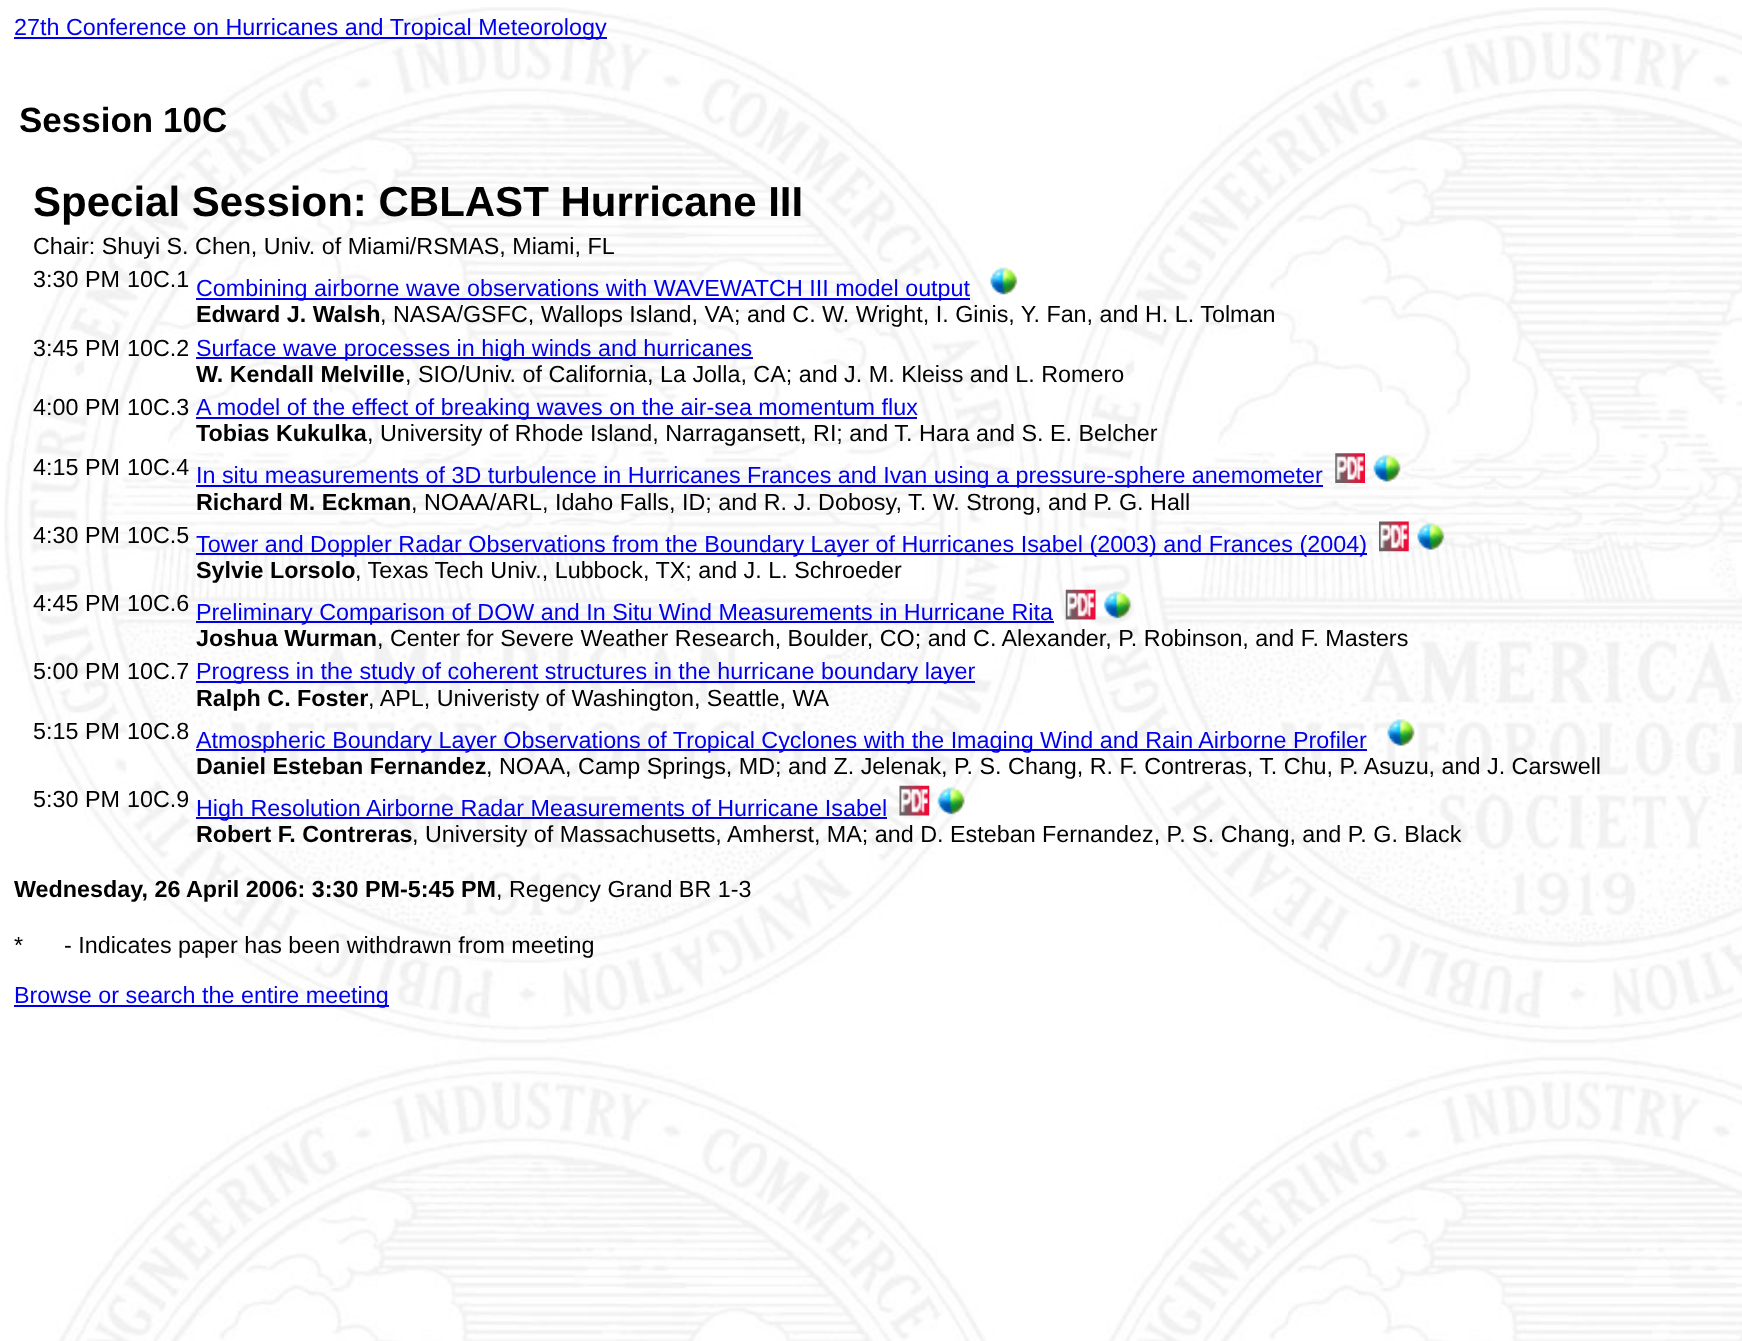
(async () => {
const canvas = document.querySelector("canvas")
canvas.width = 1742
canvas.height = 1341
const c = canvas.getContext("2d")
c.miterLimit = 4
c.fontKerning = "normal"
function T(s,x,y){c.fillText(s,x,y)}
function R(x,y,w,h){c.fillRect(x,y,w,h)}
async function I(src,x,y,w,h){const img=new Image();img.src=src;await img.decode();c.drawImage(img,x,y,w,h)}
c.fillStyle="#fff"
R(0,0,1742,1341)
await I("1.png",4,7,1738,1334)
c.fillStyle="#00e"
R(14,37,593,2)
c.font="23.33px Liberation Sans"
T("27th Conference on Hurricanes and Tropical Meteorology",14,35)
c.font="bold 35px Liberation Sans"
c.fillStyle="#000"
T("Session 10C",19,132)
c.font="bold 42px Liberation Sans"
T("Special Session: CBLAST Hurricane III",33,216)
c.font="23.33px Liberation Sans"
T("Chair: Shuyi S. Chen, Univ. of Miami/RSMAS, Miami, FL",33,254)
T("3:30 PM",33,287)
T("10C.1",127,287)
c.fillStyle="#00e"
R(196,298,774,2)
T("Combining airborne wave observations with WAVEWATCH III model output",196,296)
await I("2.png",990,267,28,28)
c.font="bold 23.33px Liberation Sans"
c.fillStyle="#000"
T("Edward J. Walsh",196,322)
c.font="23.33px Liberation Sans"
T(", NASA/GSFC, Wallops Island, VA; and C. W. Wright, I. Ginis, Y. Fan, and H. L. Tolman",380,322)
T("3:45 PM",33,356)
T("10C.2",127,356)
c.fillStyle="#00e"
R(196,357,557,2)
T("Surface wave processes in high winds and hurricanes",196,356)
c.font="bold 23.33px Liberation Sans"
c.fillStyle="#000"
T("W. Kendall Melville",196,382)
c.font="23.33px Liberation Sans"
T(", SIO/Univ. of California, La Jolla, CA; and J. M. Kleiss and L. Romero",405,382)
T("4:00 PM",33,415)
T("10C.3",127,415)
c.fillStyle="#00e"
R(196,417,721,2)
T("A model of the effect of breaking waves on the air-sea momentum flux",196,415)
c.font="bold 23.33px Liberation Sans"
c.fillStyle="#000"
T("Tobias Kukulka",196,441)
c.font="23.33px Liberation Sans"
T(", University of Rhode Island, Narragansett, RI; and T. Hara and S. E. Belcher",367,441)
T("4:15 PM",33,475)
T("10C.4",127,475)
c.fillStyle="#00e"
R(196,485,1127,2)
T("In situ measurements of 3D turbulence in Hurricanes Frances and Ivan using a pressure-sphere anemometer",196,483)
await I("3.png",1335,453,30,30)
await I("4.png",1373,454,28,28)
c.font="bold 23.33px Liberation Sans"
c.fillStyle="#000"
T("Richard M. Eckman",196,510)
c.font="23.33px Liberation Sans"
T(", NOAA/ARL, Idaho Falls, ID; and R. J. Dobosy, T. W. Strong, and P. G. Hall",411,510)
T("4:30 PM",33,543)
T("10C.5",127,543)
c.fillStyle="#00e"
R(196,553,1171,2)
T("Tower and Doppler Radar Observations from the Boundary Layer of Hurricanes Isabel (2003) and Frances (2004)",196,552)
await I("5.png",1379,521,30,31)
await I("6.png",1417,523,28,27)
c.font="bold 23.33px Liberation Sans"
c.fillStyle="#000"
T("Sylvie Lorsolo",196,578)
c.font="23.33px Liberation Sans"
T(", Texas Tech Univ., Lubbock, TX; and J. L. Schroeder",355,578)
T("4:45 PM",33,611)
T("10C.6",127,611)
c.fillStyle="#00e"
R(196,621,858,2)
T("Preliminary Comparison of DOW and In Situ Wind Measurements in Hurricane Rita",196,620)
await I("7.png",1065,589,31,31)
await I("8.png",1103,591,28,28)
c.font="bold 23.33px Liberation Sans"
c.fillStyle="#000"
T("Joshua Wurman",196,646)
c.font="23.33px Liberation Sans"
T(", Center for Severe Weather Research, Boulder, CO; and C. Alexander, P. Robinson, and F. Masters",377,646)
T("5:00 PM",33,679)
T("10C.7",127,679)
c.fillStyle="#00e"
R(196,681,779,2)
T("Progress in the study of coherent structures in the hurricane boundary layer",196,679)
c.font="bold 23.33px Liberation Sans"
c.fillStyle="#000"
T("Ralph C. Foster",196,706)
c.font="23.33px Liberation Sans"
T(", APL, Univeristy of Washington, Seattle, WA",368,706)
T("5:15 PM",33,739)
T("10C.8",127,739)
c.fillStyle="#00e"
R(196,749,1171,2)
T("Atmospheric Boundary Layer Observations of Tropical Cyclones with the Imaging Wind and Rain Airborne Profiler",196,748)
await I("9.png",1387,719,28,27)
c.font="bold 23.33px Liberation Sans"
c.fillStyle="#000"
T("Daniel Esteban Fernandez",196,774)
c.font="23.33px Liberation Sans"
T(", NOAA, Camp Springs, MD; and Z. Jelenak, P. S. Chang, R. F. Contreras, T. Chu, P. Asuzu, and J. Carswell",486,774)
T("5:30 PM",33,807)
T("10C.9",127,807)
c.fillStyle="#00e"
R(196,817,691,2)
T("High Resolution Airborne Radar Measurements of Hurricane Isabel",196,816)
await I("10.png",899,785,31,31)
await I("11.png",937,787,28,28)
c.font="bold 23.33px Liberation Sans"
c.fillStyle="#000"
T("Robert F. Contreras",196,842)
c.font="23.33px Liberation Sans"
T(", University of Massachusetts, Amherst, MA; and D. Esteban Fernandez, P. S. Chang, and P. G. Black",412,842)
c.font="bold 23.33px Liberation Sans"
T("Wednesday, 26 April 2006: 3:30 PM-5:45 PM",14,897)
c.font="23.33px Liberation Sans"
T(", Regency Grand BR 1-3",496,897)
T("*",14,953)
T("- Indicates paper has been withdrawn from meeting",64,953)
c.fillStyle="#00e"
R(14,1005,375,2)
T("Browse or search the entire meeting",14,1003)
})()
